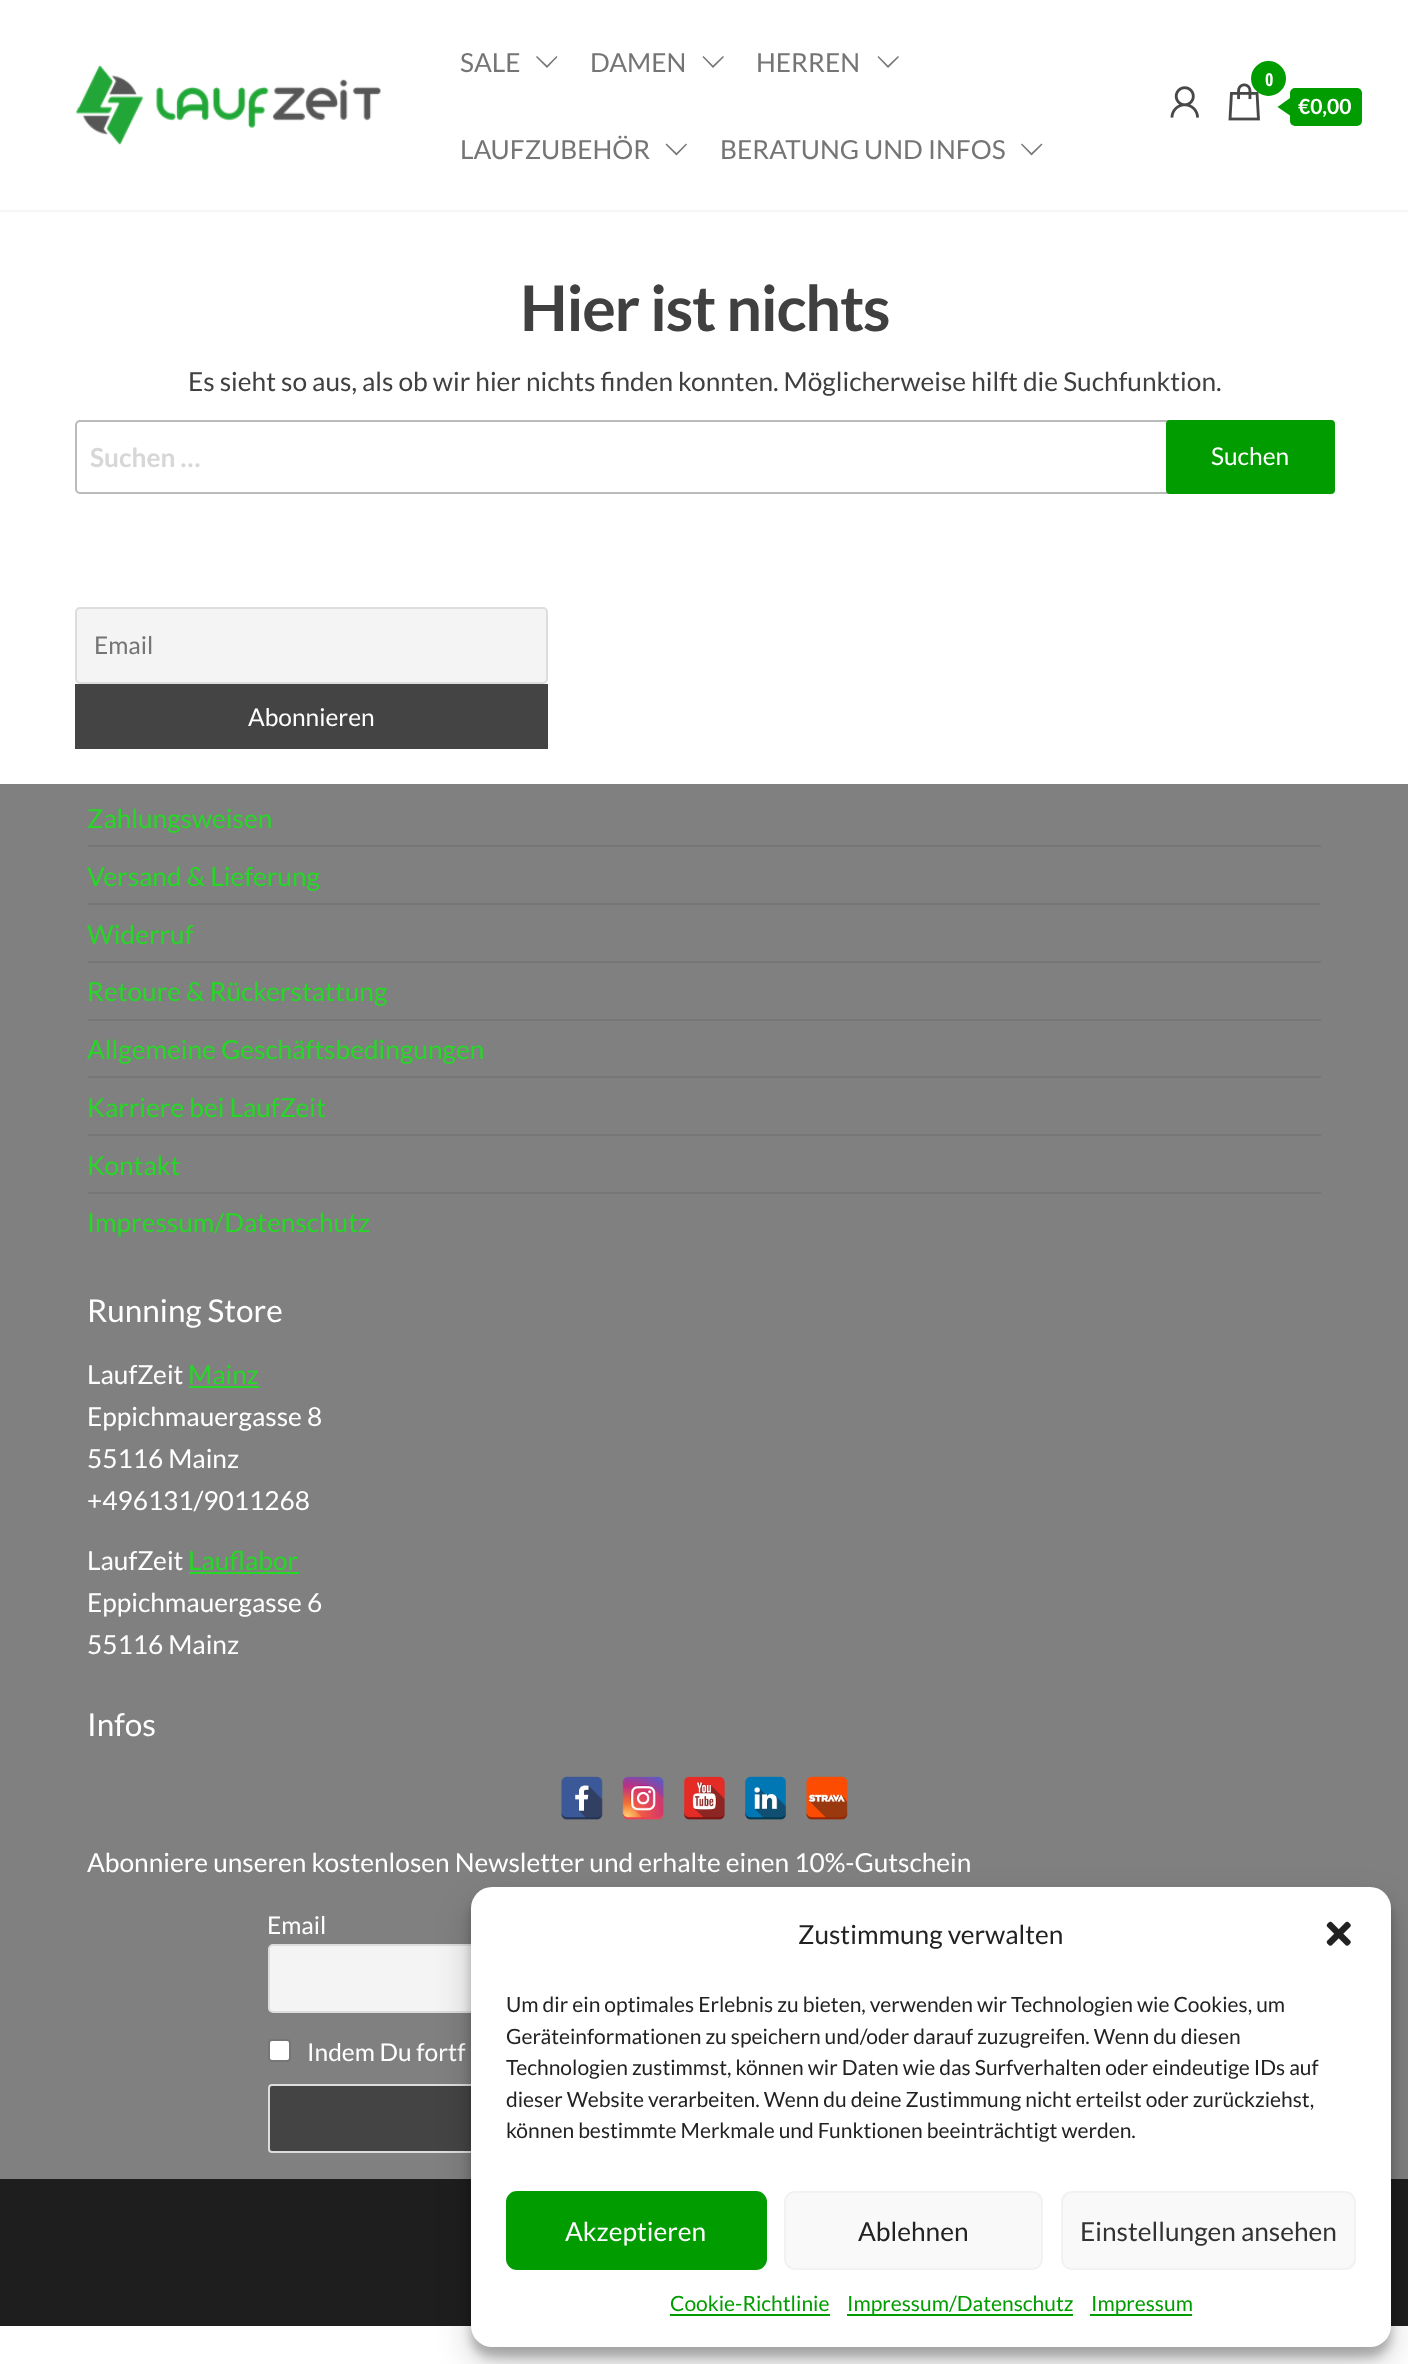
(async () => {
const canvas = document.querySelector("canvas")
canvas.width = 1408
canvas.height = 2364
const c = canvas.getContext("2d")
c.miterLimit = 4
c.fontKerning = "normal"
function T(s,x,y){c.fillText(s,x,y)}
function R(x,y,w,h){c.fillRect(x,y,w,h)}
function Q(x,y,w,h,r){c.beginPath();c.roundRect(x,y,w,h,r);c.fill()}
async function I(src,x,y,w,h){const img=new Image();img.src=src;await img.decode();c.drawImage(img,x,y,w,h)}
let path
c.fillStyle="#fff"
R(0,0,1408,2364)
c.fillStyle="#f6f6f6"
R(0,210,1408,2)
await I("1.png",76,65,305,80)
c.font="26.25px Lato"
c.fillStyle="#757575"
T("SALE",460,72)
c.fillStyle="#777"
path = new Path2D("M537 56l-1 1l11 11l10.5-11l-1-1l-9.5 9.5z")
c.fill(path)
c.fillStyle="#757575"
T("DAMEN",590,72)
c.fillStyle="#777"
path = new Path2D("M703.5 56l-1 1l10.5 11l11-11l-1-1l-10 9.5z")
c.fill(path)
c.fillStyle="#757575"
T("HERREN",756,72)
c.fillStyle="#777"
path = new Path2D("M878.5 56l-1 1l10.5 11l11-11l-1-1l-10 9.5z")
c.fill(path)
c.fillStyle="#757575"
T("LAUFZUBEHÖR",460,159)
c.fillStyle="#777"
path = new Path2D("M666.5 143.5l-1 1l11 11l10.5-11l-1-1l-9.5 9.5z")
c.fill(path)
c.fillStyle="#757575"
T("BERATUNG UND INFOS",720,159)
c.fillStyle="#777"
path = new Path2D("M1022 143.5l-1 1l10.5 11l11-11l-1-1l-10 9.5z")
c.fill(path)
await I("2.png",1170,86,29,32)
await I("3.png",1228,83,32,38)
c.fillStyle="#009c00"
c.beginPath()
c.arc(1268.5,78.5,16.5,0,7)
c.fill()
c.strokeStyle="#009c00"
c.lineWidth=2
c.stroke()
c.font="bold 18px Open Sans Condensed"
c.fillStyle="#fff"
T("0",1265,86)
c.fillStyle="#009c00"
Q(1290,88,72,38,5)
path = new Path2D("M1290 98v17.5l-12.5-8.5z")
c.fill(path)
c.font="bold 21px Lato"
c.fillStyle="#fff"
T("€0,00",1298,114)
c.letterSpacing="-1.25px"
c.font="bold 63px Lato"
c.fillStyle="#404040"
T("Hier ist nichts",520,331)
c.letterSpacing="0px"
c.font="26.25px Lato"
T("Es sieht so aus, als ob wir hier nichts finden konnten. Möglicherweise hilft die Suchfunktion.",188,391)
c.beginPath()
c.roundRect(76,421,1258,72,4)
c.strokeStyle="#bbb"
c.stroke()
c.font="bold 26.25px Lato"
c.fillStyle="#d7d7d7"
T("Suchen …",90,467)
c.fillStyle="#009c00"
c.beginPath()
c.roundRect(1167,421,167,72,3)
c.fill()
c.strokeStyle="#009c00"
c.stroke()
c.font="24.5px Lato"
c.fillStyle="#fff"
T("Suchen",1211,465)
c.fillStyle="#f4f4f4"
c.beginPath()
c.roundRect(76,608,471,75,4)
c.fill()
c.strokeStyle="#ddd"
c.stroke()
c.fillStyle="#757575"
T("Email",94,654)
c.fillStyle="#444"
R(75,684,473,65)
c.fillStyle="#fff"
T("Abonnieren",248,726)
c.fillStyle="#808080"
R(0,784,1408,1395)
c.fillStyle="#767676"
R(88,845,1233,2)
c.font="26.25px Lato"
c.fillStyle="#25d825"
T("Zahlungsweisen",87,828)
c.fillStyle="#767676"
R(88,903,1233,2)
c.fillStyle="#25d825"
T("Versand & Lieferung",87,886)
c.fillStyle="#767676"
R(88,961,1233,2)
c.fillStyle="#25d825"
T("Widerruf",87,944)
c.fillStyle="#767676"
R(88,1019,1233,2)
c.fillStyle="#25d825"
T("Retoure & Rückerstattung",87,1001)
c.fillStyle="#767676"
R(88,1076,1233,2)
c.fillStyle="#25d825"
T("Allgemeine Geschäftsbedingungen",87,1059)
c.fillStyle="#767676"
R(88,1134,1233,2)
c.fillStyle="#25d825"
T("Karriere bei LaufZeit",87,1117)
c.fillStyle="#767676"
R(88,1192,1233,2)
c.fillStyle="#25d825"
T("Kontakt",87,1175)
T("Impressum/Datenschutz",87,1232)
c.font="31.5px Lato"
c.fillStyle="#fff"
T("Running Store",87,1322)
c.font="26.25px Lato"
T("LaufZeit",87,1384)
c.fillStyle="#25d825"
T("Mainz",188,1384)
R(189,1386,70,2)
c.fillStyle="#fff"
T("Eppichmauergasse 8",87,1426)
T("55116 Mainz",87,1468)
T("+496131/9011268",87,1510)
T("LaufZeit",87,1570)
c.fillStyle="#25d825"
T("Lauflabor",188,1570)
R(189,1572,110,2)
c.fillStyle="#fff"
T("Eppichmauergasse 6",87,1612)
T("55116 Mainz",87,1654)
c.font="31.5px Lato"
T("Infos",87,1736)
await I("4.png",561,1776,42,44)
await I("5.png",622,1776,42,44)
await I("6.png",684,1776,41,44)
await I("7.png",745,1776,41,44)
await I("8.png",806,1776,42,44)
c.font="26.25px Lato"
T("Abonniere unseren kostenlosen Newsletter und erhalte einen 10%-Gutschein",87,1872)
c.font="24.5px Lato"
T("Email",267,1934)
c.fillStyle="#f4f4f4"
c.beginPath()
c.roundRect(269,1945,873,67,4)
c.fill()
c.stroke()
c.fillStyle="#fff"
c.beginPath()
c.roundRect(269,2040,21,21,3)
c.fill()
c.strokeStyle="#767676"
c.stroke()
T("Indem Du fortf",307,2061)
c.fillStyle="#444"
c.beginPath()
c.roundRect(269,2085,873,67,3)
c.fill()
c.strokeStyle="#ddd"
c.stroke()
c.fillStyle="#1e1e1e"
R(0,2179,1408,147)
c.fillStyle="#0000003b"
c.filter="blur(5px)"
c.beginPath()
c.roundRect(471,1897,920,460,21)
c.fill()
c.filter="none"
c.fillStyle="#00000030"
c.filter="blur(17.5px)"
c.beginPath()
c.roundRect(471,1904,920,460,21)
c.fill()
c.filter="none"
c.fillStyle="#fff"
Q(471,1887,920,460,21)
c.font="26.25px Lato"
c.fillStyle="#222"
T("Zustimmung verwalten",798,1944)
await I("9.png",1326,1921,25,25)
c.font="21px Lato"
T("Um dir ein optimales Erlebnis zu bieten, verwenden wir Technologien wie Cookies, um",506,2012)
T("Geräteinformationen zu speichern und/oder darauf zuzugreifen. Wenn du diesen",506,2044)
T("Technologien zustimmst, können wir Daten wie das Surfverhalten oder eindeutige IDs auf",506,2075)
T("dieser Website verarbeiten. Wenn du deine Zustimmung nicht erteilst oder zurückziehst,",506,2107)
T("können bestimmte Merkmale und Funktionen beeinträchtigt werden.",506,2138)
c.fillStyle="#009c00"
c.beginPath()
c.roundRect(507,2192,259,77,10)
c.fill()
c.strokeStyle="#009c00"
c.stroke()
c.font="26.25px Lato"
c.fillStyle="#fff"
T("Akzeptieren",565,2241)
c.fillStyle="#f9f9f9"
c.beginPath()
c.roundRect(785,2192,257,77,10)
c.fill()
c.strokeStyle="#f2f2f2"
c.stroke()
c.fillStyle="#222"
T("Ablehnen",858,2241)
c.fillStyle="#f9f9f9"
c.beginPath()
c.roundRect(1062,2192,293,77,10)
c.fill()
c.stroke()
c.fillStyle="#333"
T("Einstellungen ansehen",1080,2241)
c.font="21px Lato"
c.fillStyle="#009c00"
T("Cookie-Richtlinie",670,2311)
R(670,2314,160,2)
R(847,2314,226,2)
T("Impressum/Datenschutz",847,2311)
R(1090,2314,102,2)
T("Impressum",1091,2311)
})()
